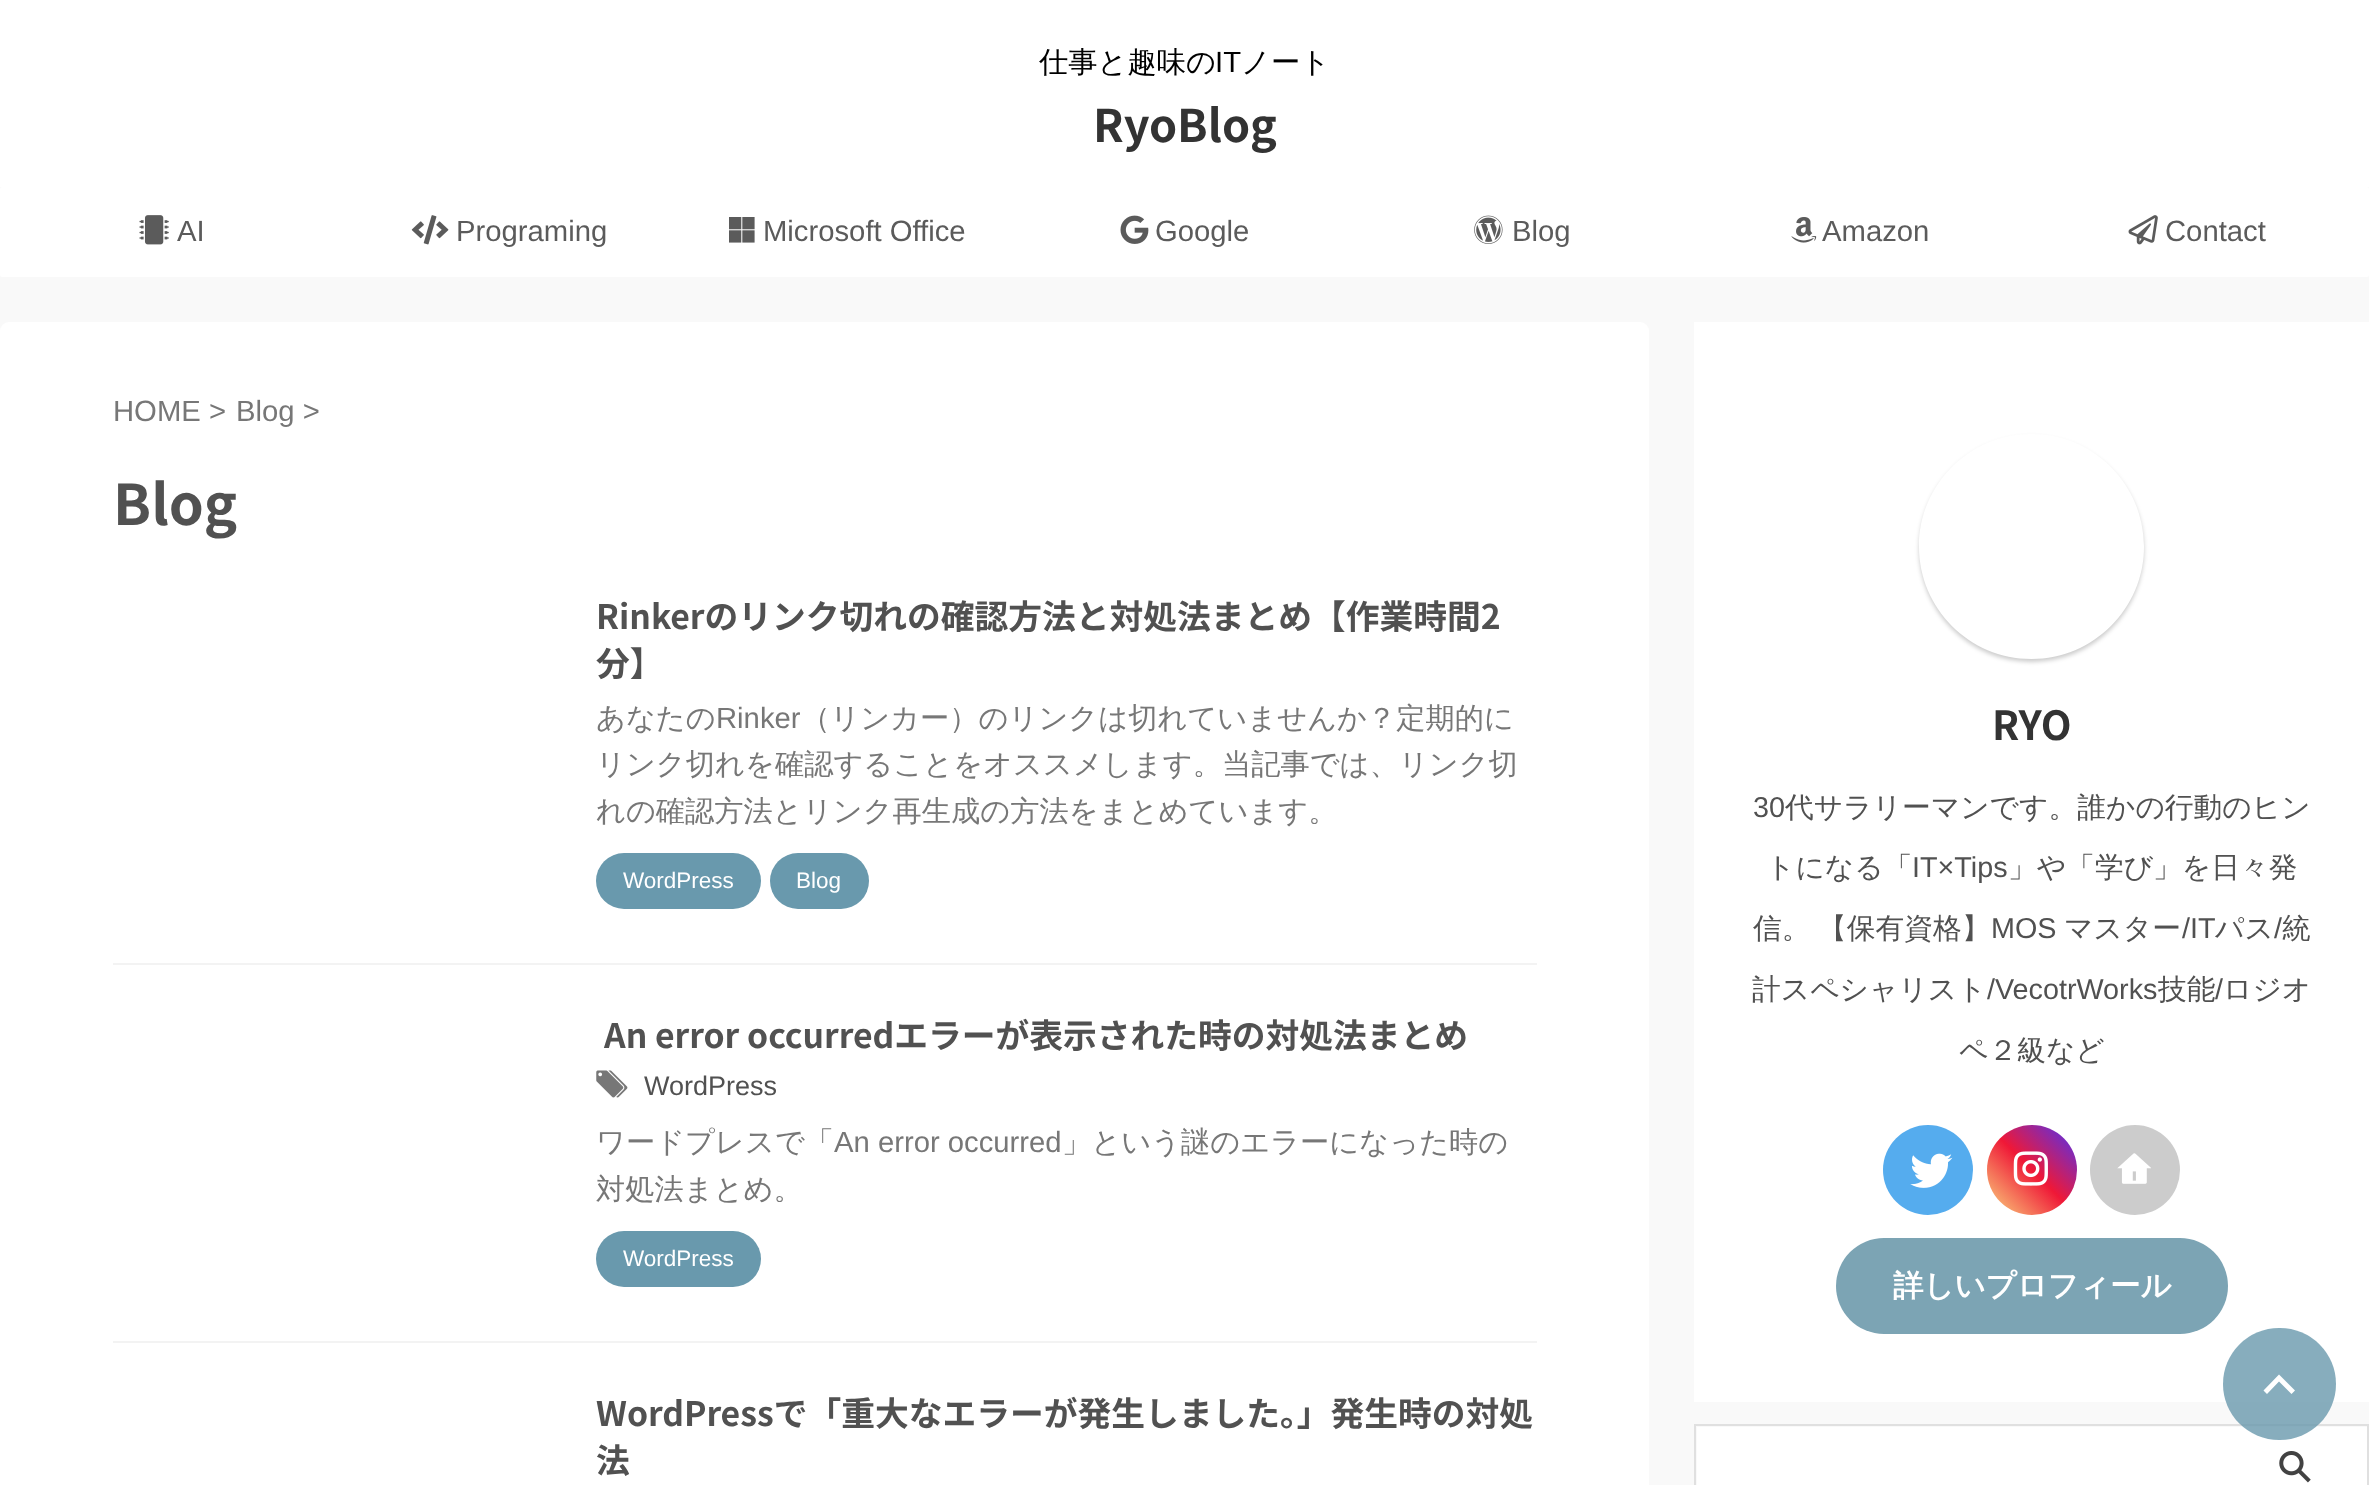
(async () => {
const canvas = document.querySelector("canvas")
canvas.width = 2369
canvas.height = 1485
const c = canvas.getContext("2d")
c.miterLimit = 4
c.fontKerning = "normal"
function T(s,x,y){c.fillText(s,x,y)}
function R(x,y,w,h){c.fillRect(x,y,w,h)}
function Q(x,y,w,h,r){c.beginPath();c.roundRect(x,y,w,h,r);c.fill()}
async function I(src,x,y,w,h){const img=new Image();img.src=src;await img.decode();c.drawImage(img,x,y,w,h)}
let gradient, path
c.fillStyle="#f9f9f9"
R(0,0,2369,1485)
c.fillStyle="#fff"
R(0,0,2369,187)
c.font="500 29.25px WenQuanYi Zen Hei"
c.fillStyle="#000"
T("仕事と趣味の",1039,72)
c.font="29.25px Liberation Sans"
T("IT",1215,72)
c.font="500 29.25px WenQuanYi Zen Hei"
T("ノート",1241,72)
c.font="bold 45px Noto Sans JP"
c.fillStyle="#333"
T("RyoBlog",1093,142)
c.fillStyle="#fff"
Q(0,187,2369,90,2)
await I("1.png",139,215,30,30)
c.font="29.25px Liberation Sans"
c.fillStyle="#5b5b5b"
T("AI",177,241)
await I("2.png",411,215,38,30)
T("Programing",456,241)
await I("3.png",729,217,26,26)
T("Microsoft Office",763,241)
await I("4.png",1120,215,29,29)
T("Google",1155,241)
await I("5.png",1474,215,29,29)
T("Blog",1512,241)
await I("6.png",1791,217,26,26)
T("Amazon",1822,241)
await I("7.png",2128,215,30,30)
T("Contact",2165,241)
c.fillStyle="#fff"
Q(0,322,1649,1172,9)
c.fillStyle="#777"
T("HOME >",113,421)
T("Blog >",236,421)
c.font="bold 56px Noto Sans JP"
c.fillStyle="#515151"
T("Blog",113,525)
c.fillStyle="#f3f3f3"
R(113,963,1424,2)
c.font="bold 33.75px Noto Sans JP"
c.fillStyle="#515151"
T("Rinkerのリンク切れの確認方法と対処法まとめ【作業時間2",596,629)
T("分】",596,676)
c.font="500 29.25px WenQuanYi Zen Hei"
c.fillStyle="#777"
T("あなたの",596,728)
c.font="29.25px Liberation Sans"
T("Rinker",716,728)
c.font="500 29.25px WenQuanYi Zen Hei"
T("（リンカー）のリンクは切れていませんか？定期的に",801,728)
T("リンク切れを確認することをオススメします。当記事では、リンク切",596,774)
T("れの確認方法とリンク再生成の方法をまとめています。",596,821)
c.fillStyle="#6999ad"
Q(596,853,165,56,28)
c.font="22.5px Liberation Sans"
c.fillStyle="#fff"
T("WordPress",623,888)
c.fillStyle="#6999ad"
Q(770,853,99,56,28)
c.fillStyle="#fff"
T("Blog",796,888)
c.fillStyle="#f3f3f3"
R(113,1341,1424,2)
c.font="bold 33.75px Noto Sans JP"
c.fillStyle="#515151"
T("An error occurredエラーが表示された時の対処法まとめ",604,1048)
await I("8.png",596,1070,32,28)
c.font="27px Liberation Sans"
T("WordPress",644,1095)
c.font="500 29.25px WenQuanYi Zen Hei"
c.fillStyle="#777"
T("ワードプレスで「",596,1152)
c.font="29.25px Liberation Sans"
T("An error occurred",834,1152)
c.font="500 29.25px WenQuanYi Zen Hei"
T("」という謎のエラーになった時の",1062,1152)
T("対処法まとめ。",596,1199)
c.fillStyle="#6999ad"
Q(596,1231,165,56,28)
c.font="22.5px Liberation Sans"
c.fillStyle="#fff"
T("WordPress",623,1266)
c.font="bold 33.75px Noto Sans JP"
c.fillStyle="#515151"
T("WordPressで「重大なエラーが発生しました。」発生時の対処",596,1426)
T("法",596,1473)
c.fillStyle="#fff"
R(1694,322,675,1080)
c.save()
path = new Path2D("M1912 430h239v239h-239zm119.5 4c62 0 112.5 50.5 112.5 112.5c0 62-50.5 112.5-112.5 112.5c-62 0-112.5-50.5-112.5-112.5c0-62 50.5-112.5 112.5-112.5z")
c.clip(path,"evenodd")
c.fillStyle="#00000033"
c.filter="blur(2px)"
c.beginPath()
c.roundRect(1919,437,225,225,112.5)
c.fill()
c.filter="none"
c.restore()
c.font="bold 40px Noto Sans JP"
c.fillStyle="#333"
T("RYO",1992,740)
c.font="28.75px Liberation Sans"
c.fillStyle="#515151"
T("30",1753,817)
c.font="500 28.75px WenQuanYi Zen Hei"
T("代サラリーマンです。誰かの行動のヒン",1785,817)
T("トになる「",1766,877)
c.font="28.75px Liberation Sans"
T("IT×Tips",1912,877)
c.font="500 28.75px WenQuanYi Zen Hei"
T("」や「学び」を日々発",2008,877)
T("信。",1753,938)
T("【保有資格】",1818,938)
c.font="28.75px Liberation Sans"
T("MOS",1991,938)
c.font="500 28.75px WenQuanYi Zen Hei"
T("マスター",2064,938)
c.font="28.75px Liberation Sans"
T("/IT",2182,938)
c.font="500 28.75px WenQuanYi Zen Hei"
T("パス",2215,938)
c.font="28.75px Liberation Sans"
T("/",2274,938)
c.font="500 28.75px WenQuanYi Zen Hei"
T("統",2282,938)
T("計スペシャリスト",1752,999)
c.font="28.75px Liberation Sans"
T("/VecotrWorks",1987,999)
c.font="500 28.75px WenQuanYi Zen Hei"
T("技能",2158,999)
c.font="28.75px Liberation Sans"
T("/",2215,999)
c.font="500 28.75px WenQuanYi Zen Hei"
T("ロジオ",2223,999)
T("ペ２級など",1959,1060)
c.fillStyle="#55acee"
c.beginPath()
c.arc(1928,1170,45,0,7)
c.fill()
await I("9.png",1910,1153,43,35)
gradient = c.createLinearGradient(2077,1125,1987,1215)
gradient.addColorStop(0,"#4933f7")
gradient.addColorStop(.5,"#ef1837")
gradient.addColorStop(1,"#fbd980")
c.fillStyle = gradient
c.beginPath()
c.arc(2032,1170,45,0,7)
c.fill()
await I("10.png",2013,1151,35,35)
c.fillStyle="#ccc"
c.beginPath()
c.arc(2135,1170,45,0,7)
c.fill()
await I("11.png",2117,1153,34,31)
c.fillStyle="#7ca4b4"
Q(1836,1238,392,96,48)
c.font="bold 30.4px WenQuanYi Zen Hei"
c.fillStyle="#fff"
T("詳しいプロフィール",1893,1296)
c.strokeStyle="#e0e0e0"
c.lineWidth=2
c.strokeRect(1695,1425,673,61)
R(1697,1427,670,58)
await I("12.png",2279,1451,32,32)
c.fillStyle="#6999adcc"
Q(2223,1328,113,112,56)
c.fillStyle="#fff"
path = new Path2D("M2279 1381.5l-12 12.5l-3.5-3.5l15.5-16l16 16l-3.5 3.5z")
c.fill(path)
})()
